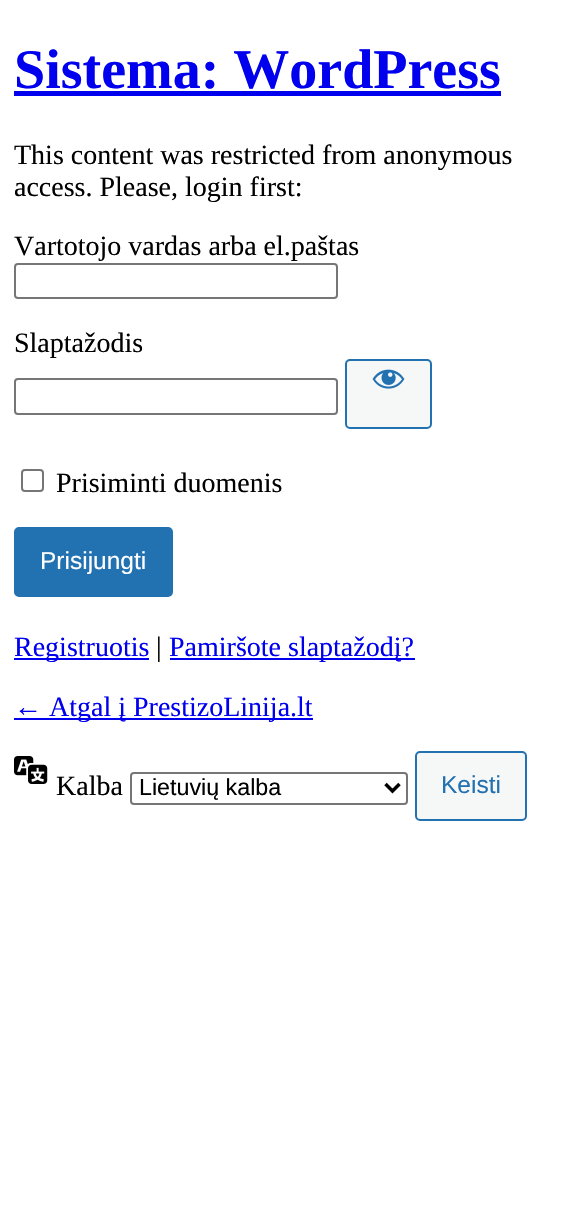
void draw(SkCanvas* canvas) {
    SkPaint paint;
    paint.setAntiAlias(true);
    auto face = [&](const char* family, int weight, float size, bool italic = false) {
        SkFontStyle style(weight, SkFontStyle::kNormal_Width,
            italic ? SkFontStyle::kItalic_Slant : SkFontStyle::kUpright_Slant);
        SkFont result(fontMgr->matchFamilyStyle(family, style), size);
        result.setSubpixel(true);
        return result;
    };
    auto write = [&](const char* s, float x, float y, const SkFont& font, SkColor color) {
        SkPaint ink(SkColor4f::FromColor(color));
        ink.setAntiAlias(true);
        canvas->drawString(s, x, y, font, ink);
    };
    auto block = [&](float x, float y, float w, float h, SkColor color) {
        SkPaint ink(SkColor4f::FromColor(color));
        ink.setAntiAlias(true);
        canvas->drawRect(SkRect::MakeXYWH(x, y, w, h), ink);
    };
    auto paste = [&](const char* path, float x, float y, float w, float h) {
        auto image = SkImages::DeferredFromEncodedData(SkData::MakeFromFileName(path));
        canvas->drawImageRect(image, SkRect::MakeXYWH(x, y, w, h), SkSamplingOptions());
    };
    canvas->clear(SK_ColorWHITE);
    auto kFont1 = face("Liberation Serif", 700, 56);
    write("Sistema: WordPress", 14, 88, kFont1, SkColorSetRGB(0, 0, 238));
    block(14, 91, 487, 5, SkColorSetRGB(0, 0, 238));
    auto kFont2 = face("Liberation Serif", 400, 28);
    write("This content was restricted from anonymous", 14, 164, kFont2, SK_ColorBLACK);
    write("access. Please, login first:", 14, 196, kFont2, SK_ColorBLACK);
    write("Vartotojo vardas arba el.paštas", 14, 255, kFont2, SK_ColorBLACK);
    paint.setStyle(SkPaint::kStroke_Style);
    paint.setStrokeWidth(2);
    paint.setColor(SkColorSetRGB(118, 118, 118));
    canvas->drawRoundRect(SkRect::MakeXYWH(15, 264, 322, 34), 3, 3, paint);
    write("Slaptažodis", 14, 352, kFont2, SK_ColorBLACK);
    canvas->drawRoundRect(SkRect::MakeXYWH(15, 379, 322, 35), 3, 3, paint);
    paint.setStyle(SkPaint::kFill_Style);
    paint.setColor(SkColorSetRGB(246, 247, 247));
    canvas->drawRoundRect(SkRect::MakeXYWH(346, 360, 85, 68), 4, 4, paint);
    paint.setStyle(SkPaint::kStroke_Style);
    paint.setColor(SkColorSetRGB(34, 113, 177));
    canvas->drawRoundRect(SkRect::MakeXYWH(346, 360, 85, 68), 4, 4, paint);
    paste("pic1.png", 372, 369, 33, 20);
    paint.setColor(SkColorSetRGB(118, 118, 118));
    canvas->drawRoundRect(SkRect::MakeXYWH(22, 470, 21, 21), 3, 3, paint);
    write("Prisiminti duomenis", 56, 492, kFont2, SK_ColorBLACK);
    paint.setStyle(SkPaint::kFill_Style);
    paint.setColor(SkColorSetRGB(34, 113, 177));
    canvas->drawRoundRect(SkRect::MakeXYWH(15, 528, 157, 68), 4, 4, paint);
    paint.setStyle(SkPaint::kStroke_Style);
    canvas->drawRoundRect(SkRect::MakeXYWH(15, 528, 157, 68), 4, 4, paint);
    auto kFont3 = face("Liberation Sans", 400, 24.5f);
    write("Prisijungti", 40, 569, kFont3, SK_ColorWHITE);
    block(14, 658, 135, 2, SkColorSetRGB(0, 0, 238));
    write("Registruotis", 14, 656, kFont2, SkColorSetRGB(0, 0, 238));
    write("|", 156, 656, kFont2, SK_ColorBLACK);
    block(170, 658, 245, 2, SkColorSetRGB(0, 0, 238));
    write("Pamiršote slaptažodį?", 169, 656, kFont2, SkColorSetRGB(0, 0, 238));
    block(14, 718, 299, 2, SkColorSetRGB(0, 0, 238));
    write("← Atgal į PrestizoLinija.lt", 14, 716, kFont2, SkColorSetRGB(0, 0, 238));
    paste("pic2.png", 14, 756, 34, 28);
    write("Kalba", 56, 795, kFont2, SK_ColorBLACK);
    paint.setColor(SkColorSetRGB(118, 118, 118));
    canvas->drawRoundRect(SkRect::MakeXYWH(131, 773, 276, 31), 3, 3, paint);
    paint.setStrokeWidth(3.5f);
    paint.setColor(SK_ColorBLACK);
    canvas->drawPath(SkPathBuilder().moveTo(385.5f, 784).lineTo(392.5f, 791).lineTo(399.5f, 784).detach(), paint);
    auto kFont4 = face("Liberation Sans", 400, 23.25f);
    write("Lietuvių kalba", 139, 795, kFont4, SK_ColorBLACK);
    paint.setStyle(SkPaint::kFill_Style);
    paint.setColor(SkColorSetRGB(246, 247, 247));
    canvas->drawRoundRect(SkRect::MakeXYWH(416, 752, 110, 68), 4, 4, paint);
    paint.setStyle(SkPaint::kStroke_Style);
    paint.setStrokeWidth(2);
    paint.setColor(SkColorSetRGB(34, 113, 177));
    canvas->drawRoundRect(SkRect::MakeXYWH(416, 752, 110, 68), 4, 4, paint);
    write("Keisti", 441, 793, kFont3, SkColorSetRGB(34, 113, 177));
}
